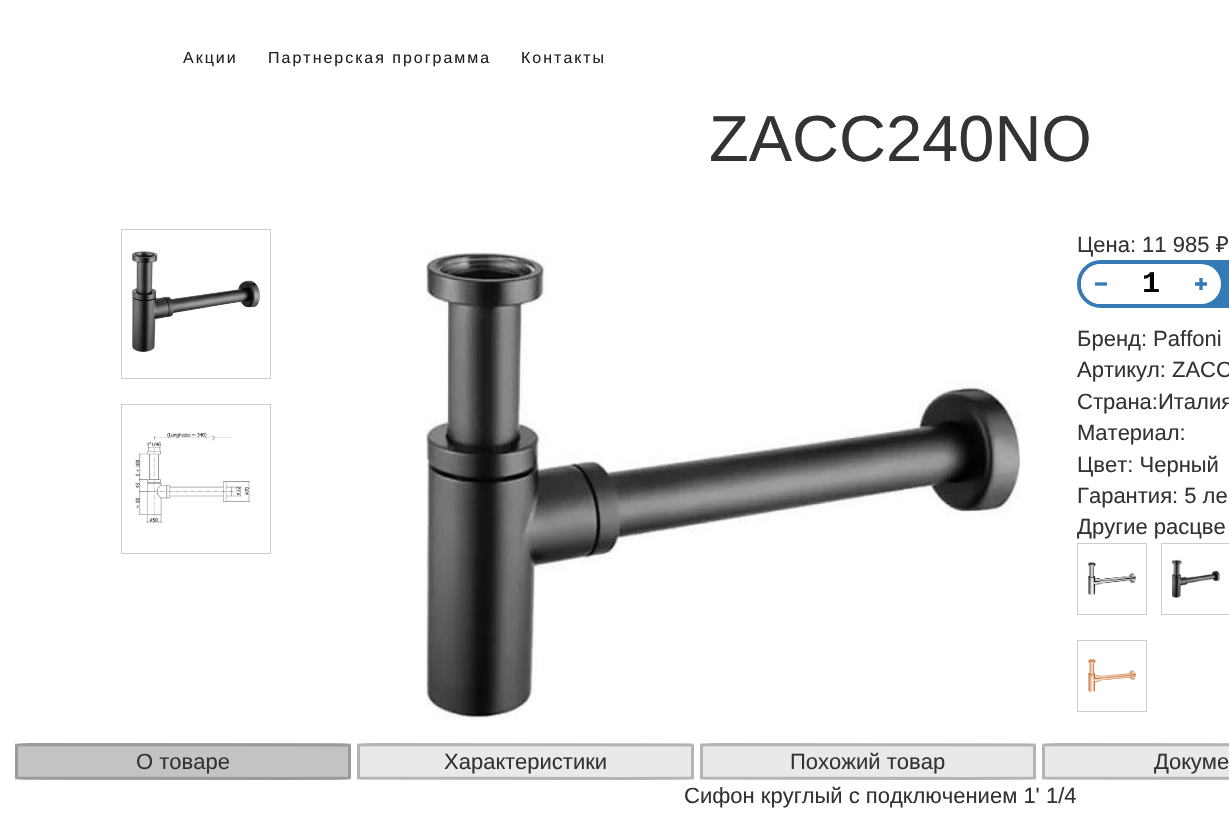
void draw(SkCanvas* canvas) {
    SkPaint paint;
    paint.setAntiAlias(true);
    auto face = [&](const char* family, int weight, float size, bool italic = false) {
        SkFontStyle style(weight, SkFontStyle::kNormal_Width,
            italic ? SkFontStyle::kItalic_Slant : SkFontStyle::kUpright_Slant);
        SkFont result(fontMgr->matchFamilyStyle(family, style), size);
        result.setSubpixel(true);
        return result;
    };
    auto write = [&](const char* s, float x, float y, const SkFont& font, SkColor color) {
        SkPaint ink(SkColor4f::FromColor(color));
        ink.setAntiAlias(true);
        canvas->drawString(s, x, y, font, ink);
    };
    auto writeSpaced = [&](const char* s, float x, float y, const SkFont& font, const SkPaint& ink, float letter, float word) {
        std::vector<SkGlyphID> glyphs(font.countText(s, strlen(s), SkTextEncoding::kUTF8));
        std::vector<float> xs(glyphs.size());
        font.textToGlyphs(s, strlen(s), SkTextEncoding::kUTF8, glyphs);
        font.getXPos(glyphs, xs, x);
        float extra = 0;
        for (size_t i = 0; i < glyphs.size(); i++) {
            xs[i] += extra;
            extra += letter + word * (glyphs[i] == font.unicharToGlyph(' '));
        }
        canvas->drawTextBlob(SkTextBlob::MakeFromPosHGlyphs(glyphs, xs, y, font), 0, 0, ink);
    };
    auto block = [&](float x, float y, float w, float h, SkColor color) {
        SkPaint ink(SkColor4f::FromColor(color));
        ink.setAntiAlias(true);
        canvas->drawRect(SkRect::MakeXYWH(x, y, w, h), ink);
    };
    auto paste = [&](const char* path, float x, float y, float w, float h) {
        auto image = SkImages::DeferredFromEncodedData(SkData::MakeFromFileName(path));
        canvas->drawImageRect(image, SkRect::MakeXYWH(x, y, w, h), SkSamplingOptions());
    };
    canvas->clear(SK_ColorWHITE);
    auto kFont1 = face("Liberation Sans", 400, 16);
    paint.setColor(SkColorSetRGB(34, 34, 34));
    writeSpaced("Акции", 183, 63, kFont1, paint, 2, 0);
    writeSpaced("Партнерская программа", 268, 63, kFont1, paint, 2, 0);
    writeSpaced("Контакты", 521, 63, kFont1, paint, 2, 0);
    auto kFont2 = face("Liberation Sans", 400, 65);
    write("ZACC240NO", 709, 161, kFont2, SkColorSetRGB(51, 51, 51));
    paint.setStyle(SkPaint::kStroke_Style);
    paint.setStrokeWidth(1);
    paint.setColor(SkColorSetRGB(204, 204, 204));
    canvas->drawRect(SkRect::MakeXYWH(121.5f, 229.5f, 149, 149), paint);
    paste("pic1.png", 132, 251, 128, 101);
    canvas->drawRect(SkRect::MakeXYWH(121.5f, 404.5f, 149, 149), paint);
    paste("pic2.png", 132, 430, 118, 93);
    paste("pic3.png", 426, 249, 594, 472);
    auto kFont3 = face("Liberation Sans", 400, 22);
    write("Цена: 11 985", 1077, 252, kFont3, SkColorSetRGB(51, 51, 51));
    auto kFont4 = face("Noto Sans", 400, 22);
    write("₽", 1216, 252, kFont4, SkColorSetRGB(51, 51, 51));
    paint.setStrokeWidth(4);
    paint.setColor(SkColorSetRGB(51, 122, 183));
    canvas->drawRoundRect(SkRect::MakeXYWH(1079, 262, 144, 44), 22, 22, paint);
    paint.setStyle(SkPaint::kFill_Style);
    paint.setColor(SK_ColorWHITE);
    canvas->drawCircle(1101, 284, 20, paint);
    paint.setStyle(SkPaint::kStroke_Style);
    paint.setStrokeWidth(3.3f);
    paint.setColor(SkColorSetRGB(51, 122, 183));
    canvas->drawPath(SkPathBuilder().moveTo(1095, 284).lineTo(1107, 284).detach(), paint);
    block(1201, 260, 28, 48, SkColorSetRGB(51, 122, 183));
    auto kFont5 = face("Liberation Mono", 700, 30);
    write("1", 1142, 292, kFont5, SK_ColorBLACK);
    paint.setStyle(SkPaint::kFill_Style);
    paint.setColor(SK_ColorWHITE);
    canvas->drawCircle(1201, 284, 20, paint);
    paint.setStyle(SkPaint::kStroke_Style);
    paint.setColor(SkColorSetRGB(51, 122, 183));
    canvas->drawPath(SkPathBuilder().moveTo(1201, 278).lineTo(1201, 290).moveTo(1195, 284).lineTo(1207, 284).detach(), paint);
    write("Бренд: Paffoni", 1077, 346, kFont3, SkColorSetRGB(51, 51, 51));
    write("Артикул: ZACC", 1077, 377, kFont3, SkColorSetRGB(51, 51, 51));
    write("Страна:Италия", 1077, 409, kFont3, SkColorSetRGB(51, 51, 51));
    write("Материал:", 1077, 440, kFont3, SkColorSetRGB(51, 51, 51));
    write("Цвет: Черный", 1077, 472, kFont3, SkColorSetRGB(51, 51, 51));
    write("Гарантия: 5 ле", 1077, 503, kFont3, SkColorSetRGB(51, 51, 51));
    write("Другие расцве", 1077, 534, kFont3, SkColorSetRGB(51, 51, 51));
    paint.setStrokeWidth(1);
    paint.setColor(SkColorSetRGB(204, 204, 204));
    canvas->drawRect(SkRect::MakeXYWH(1077.5f, 543.5f, 69, 71), paint);
    paste("pic4.png", 1088, 562, 48, 33);
    canvas->drawRect(SkRect::MakeXYWH(1161.5f, 543.5f, 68, 71), paint);
    paste("pic5.png", 1172, 559, 48, 39);
    canvas->drawRect(SkRect::MakeXYWH(1077.5f, 640.5f, 69, 71), paint);
    paste("pic6.png", 1088, 659, 48, 33);
    paint.setStyle(SkPaint::kFill_Style);
    paint.setColor(SkColorSetRGB(196, 195, 195));
    canvas->drawPath(SkPathBuilder().moveTo(32, 743).lineTo(334, 743).cubicTo(343, 743, 351, 744, 351, 745).lineTo(351, 778).cubicTo(351, 779, 343, 780, 334, 780).lineTo(32, 780).cubicTo(23, 780, 15, 779, 15, 778).lineTo(15, 745).cubicTo(15, 744, 23, 743, 32, 743).close().detach(), paint);
    paint.setStyle(SkPaint::kStroke_Style);
    paint.setStrokeWidth(3);
    paint.setColor(SkColorSetARGB(77, 58, 55, 55));
    canvas->drawPath(SkPathBuilder().moveTo(32, 744.5f).lineTo(349.5f, 745).lineTo(349.5f, 778).lineTo(284, 778.5f).lineTo(16.5f, 778).lineTo(16.5f, 745).close().detach(), paint);
    write("О товаре", 136, 769, kFont3, SkColorSetRGB(51, 51, 51));
    paint.setStyle(SkPaint::kFill_Style);
    paint.setColor(SkColorSetRGB(234, 233, 233));
    canvas->drawPath(SkPathBuilder().moveTo(374, 743).lineTo(677, 743).cubicTo(686, 743, 694, 744, 694, 745).lineTo(694, 778).cubicTo(694, 779, 686, 780, 677, 780).lineTo(374, 780).cubicTo(365, 780, 357, 779, 357, 778).lineTo(357, 745).cubicTo(357, 744, 365, 743, 374, 743).close().detach(), paint);
    paint.setStyle(SkPaint::kStroke_Style);
    paint.setColor(SkColorSetARGB(77, 58, 55, 55));
    canvas->drawPath(SkPathBuilder().moveTo(374, 744.5f).lineTo(692.5f, 745).lineTo(692.5f, 778).lineTo(626.5f, 778.5f).lineTo(358.5f, 778).lineTo(358.5f, 745).close().detach(), paint);
    write("Характеристики", 444, 769, kFont3, SkColorSetRGB(51, 51, 51));
    paint.setStyle(SkPaint::kFill_Style);
    paint.setColor(SkColorSetRGB(234, 233, 233));
    canvas->drawPath(SkPathBuilder().moveTo(717, 743).lineTo(1019, 743).cubicTo(1028, 743, 1036, 744, 1036, 745).lineTo(1036, 778).cubicTo(1036, 779, 1028, 780, 1019, 780).lineTo(717, 780).cubicTo(708, 780, 700, 779, 700, 778).lineTo(700, 745).cubicTo(700, 744, 708, 743, 717, 743).close().detach(), paint);
    paint.setStyle(SkPaint::kStroke_Style);
    paint.setColor(SkColorSetARGB(77, 58, 55, 55));
    canvas->drawPath(SkPathBuilder().moveTo(717, 744.5f).lineTo(1034.5f, 745).lineTo(1034.5f, 778).lineTo(969, 778.5f).lineTo(701.5f, 778).lineTo(701.5f, 745).close().detach(), paint);
    write("Похожий товар", 790, 769, kFont3, SkColorSetRGB(51, 51, 51));
    paint.setStyle(SkPaint::kFill_Style);
    paint.setColor(SkColorSetRGB(234, 233, 233));
    canvas->drawPath(SkPathBuilder().moveTo(1059, 743).lineTo(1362, 743).cubicTo(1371, 743, 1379, 744, 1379, 745).lineTo(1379, 778).cubicTo(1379, 779, 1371, 780, 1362, 780).lineTo(1059, 780).cubicTo(1050, 780, 1042, 779, 1042, 778).lineTo(1042, 745).cubicTo(1042, 744, 1050, 743, 1059, 743).close().detach(), paint);
    paint.setStyle(SkPaint::kStroke_Style);
    paint.setColor(SkColorSetARGB(77, 58, 55, 55));
    canvas->drawPath(SkPathBuilder().moveTo(1059, 744.5f).lineTo(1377.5f, 745).lineTo(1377.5f, 778).lineTo(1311.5f, 778.5f).lineTo(1043.5f, 778).lineTo(1043.5f, 745).close().detach(), paint);
    write("Докуме", 1154, 769, kFont3, SkColorSetRGB(51, 51, 51));
    write("Сифон круглый с подключением 1' 1/4", 684, 803, kFont3, SkColorSetRGB(51, 51, 51));
}
